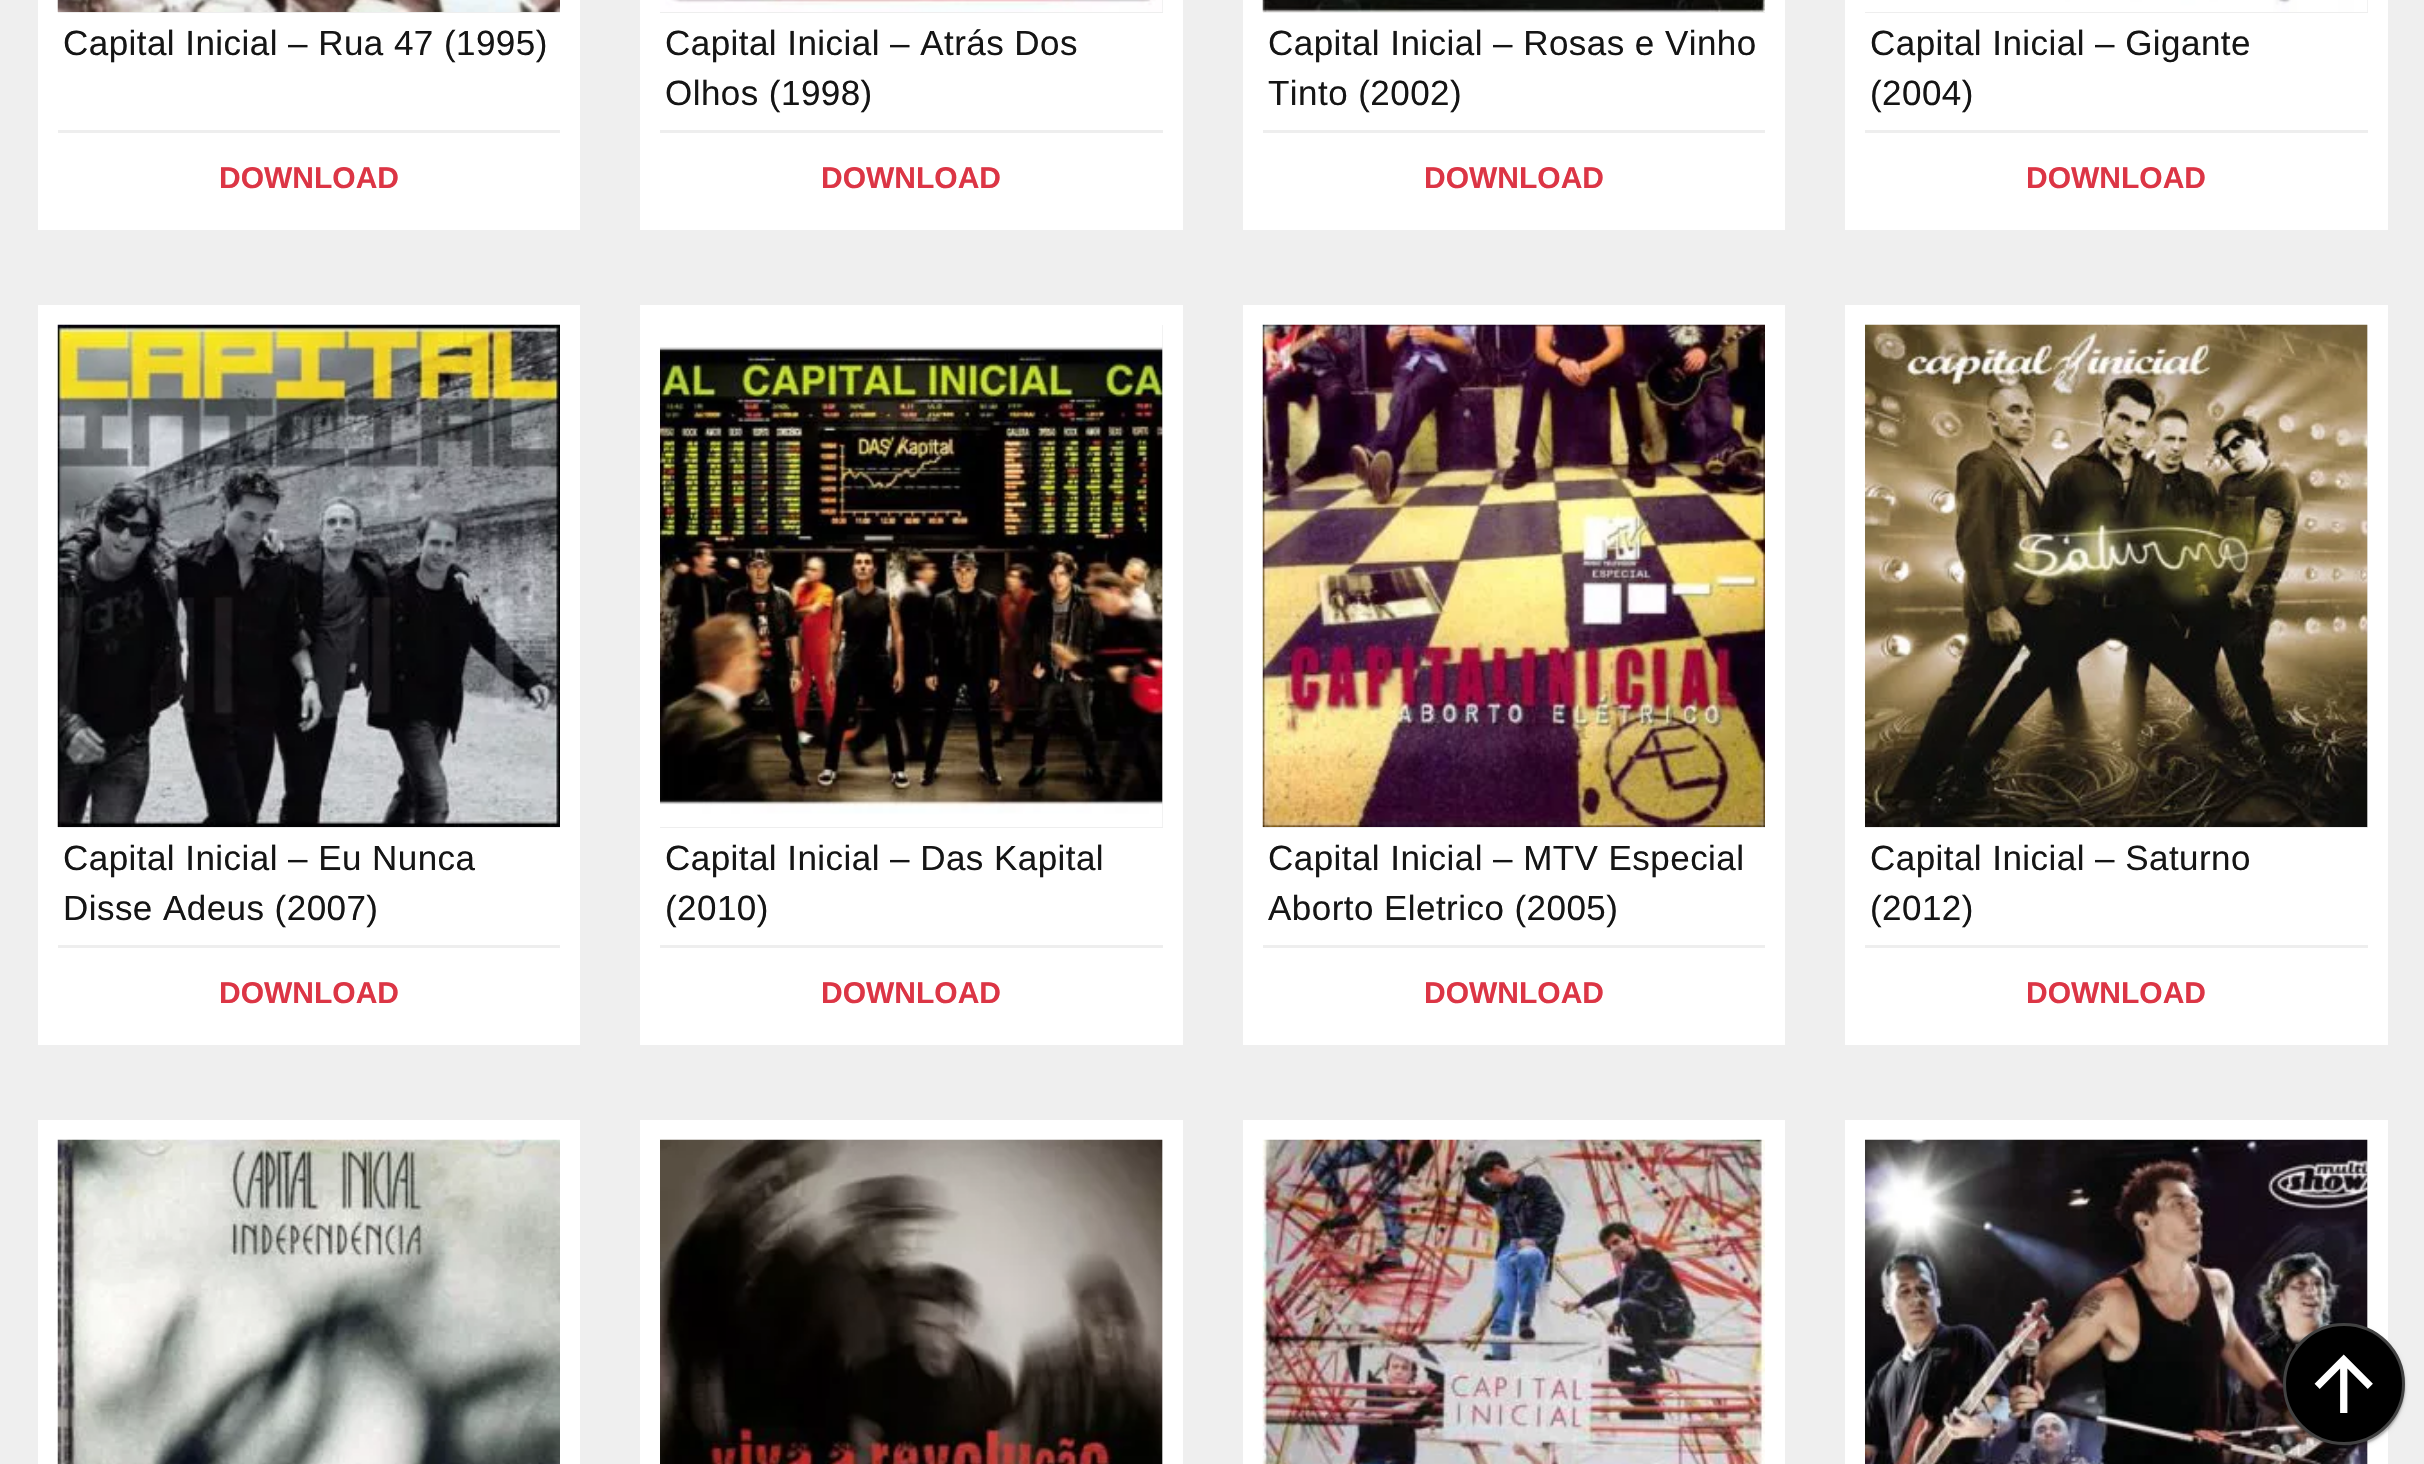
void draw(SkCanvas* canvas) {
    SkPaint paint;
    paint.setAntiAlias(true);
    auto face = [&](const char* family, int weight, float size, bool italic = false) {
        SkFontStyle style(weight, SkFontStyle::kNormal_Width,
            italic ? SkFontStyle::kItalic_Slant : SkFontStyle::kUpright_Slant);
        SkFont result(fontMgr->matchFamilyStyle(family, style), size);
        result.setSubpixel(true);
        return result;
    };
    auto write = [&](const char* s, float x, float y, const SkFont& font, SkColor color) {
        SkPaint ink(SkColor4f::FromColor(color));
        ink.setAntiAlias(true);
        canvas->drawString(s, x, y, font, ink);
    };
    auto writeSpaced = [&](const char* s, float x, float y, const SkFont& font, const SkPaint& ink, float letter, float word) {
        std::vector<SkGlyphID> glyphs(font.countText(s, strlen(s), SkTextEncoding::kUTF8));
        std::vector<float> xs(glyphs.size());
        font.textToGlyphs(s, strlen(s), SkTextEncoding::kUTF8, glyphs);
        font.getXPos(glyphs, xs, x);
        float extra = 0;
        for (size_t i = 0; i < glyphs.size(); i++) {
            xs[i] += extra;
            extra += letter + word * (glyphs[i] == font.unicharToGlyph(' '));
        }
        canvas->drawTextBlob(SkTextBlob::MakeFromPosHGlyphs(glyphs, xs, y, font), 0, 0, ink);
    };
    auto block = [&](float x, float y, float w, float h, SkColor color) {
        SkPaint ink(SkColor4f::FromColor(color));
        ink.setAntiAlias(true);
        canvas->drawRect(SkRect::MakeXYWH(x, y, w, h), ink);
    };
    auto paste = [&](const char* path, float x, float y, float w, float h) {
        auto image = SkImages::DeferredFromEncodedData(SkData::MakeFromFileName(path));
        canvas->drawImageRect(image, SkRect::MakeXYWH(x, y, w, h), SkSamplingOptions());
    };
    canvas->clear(SkColorSetRGB(239, 239, 239));
    block(38, 0, 542, 230, SK_ColorWHITE);
    block(58, 12, 502, 1, SkColorSetRGB(238, 238, 238));
    paste("pic1.png", 57, 0, 503, 12);
    auto kFont1 = face("Liberation Sans", 400, 35);
    paint.setColor(SkColorSetRGB(21, 21, 21));
    writeSpaced("Capital Inicial – Rua 47 (1995)", 63, 55, kFont1, paint, 0.45f, 0);
    block(58, 130, 502, 3, SkColorSetRGB(238, 238, 238));
    auto kFont2 = face("Liberation Sans", 700, 30);
    write("DOWNLOAD", 219, 188, kFont2, SkColorSetRGB(220, 53, 69));
    block(640, 0, 543, 230, SK_ColorWHITE);
    block(660, 0, 503, 13, SkColorSetRGB(238, 238, 238));
    paste("pic2.png", 660, 0, 503, 12);
    writeSpaced("Capital Inicial – Atrás Dos", 665, 55, kFont1, paint, 0.45f, 0);
    writeSpaced("Olhos (1998)", 665, 105, kFont1, paint, 0.45f, 0);
    block(660, 130, 503, 3, SkColorSetRGB(238, 238, 238));
    write("DOWNLOAD", 821, 188, kFont2, SkColorSetRGB(220, 53, 69));
    block(1243, 0, 542, 230, SK_ColorWHITE);
    block(1263, 12, 502, 1, SkColorSetRGB(238, 238, 238));
    paste("pic3.png", 1262, 0, 503, 12);
    writeSpaced("Capital Inicial – Rosas e Vinho", 1268, 55, kFont1, paint, 0.45f, 0);
    writeSpaced("Tinto (2002)", 1268, 105, kFont1, paint, 0.45f, 0);
    block(1263, 130, 502, 3, SkColorSetRGB(238, 238, 238));
    write("DOWNLOAD", 1424, 188, kFont2, SkColorSetRGB(220, 53, 69));
    block(1845, 0, 543, 230, SK_ColorWHITE);
    block(1865, 0, 503, 13, SkColorSetRGB(238, 238, 238));
    paste("pic4.png", 1865, 0, 503, 12);
    writeSpaced("Capital Inicial – Gigante", 1870, 55, kFont1, paint, 0.45f, 0);
    writeSpaced("(2004)", 1870, 105, kFont1, paint, 0.45f, 0);
    block(1865, 130, 503, 3, SkColorSetRGB(238, 238, 238));
    write("DOWNLOAD", 2026, 188, kFont2, SkColorSetRGB(220, 53, 69));
    block(38, 305, 542, 740, SK_ColorWHITE);
    block(58, 827, 502, 1, SkColorSetRGB(238, 238, 238));
    paste("pic5.png", 57, 324, 503, 503);
    writeSpaced("Capital Inicial – Eu Nunca", 63, 870, kFont1, paint, 0.45f, 0);
    writeSpaced("Disse Adeus (2007)", 63, 920, kFont1, paint, 0.45f, 0);
    block(58, 945, 502, 3, SkColorSetRGB(238, 238, 238));
    write("DOWNLOAD", 219, 1003, kFont2, SkColorSetRGB(220, 53, 69));
    block(640, 305, 543, 740, SK_ColorWHITE);
    block(660, 325, 503, 503, SkColorSetRGB(238, 238, 238));
    paste("pic6.png", 660, 325, 503, 502);
    writeSpaced("Capital Inicial – Das Kapital", 665, 870, kFont1, paint, 0.45f, 0);
    writeSpaced("(2010)", 665, 920, kFont1, paint, 0.45f, 0);
    block(660, 945, 503, 3, SkColorSetRGB(238, 238, 238));
    write("DOWNLOAD", 821, 1003, kFont2, SkColorSetRGB(220, 53, 69));
    block(1243, 305, 542, 740, SK_ColorWHITE);
    block(1263, 827, 502, 1, SkColorSetRGB(238, 238, 238));
    paste("pic7.png", 1262, 324, 503, 503);
    writeSpaced("Capital Inicial – MTV Especial", 1268, 870, kFont1, paint, 0.45f, 0);
    writeSpaced("Aborto Eletrico (2005)", 1268, 920, kFont1, paint, 0.45f, 0);
    block(1263, 945, 502, 3, SkColorSetRGB(238, 238, 238));
    write("DOWNLOAD", 1424, 1003, kFont2, SkColorSetRGB(220, 53, 69));
    block(1845, 305, 543, 740, SK_ColorWHITE);
    block(1865, 325, 503, 503, SkColorSetRGB(238, 238, 238));
    paste("pic8.png", 1865, 324, 503, 503);
    writeSpaced("Capital Inicial – Saturno", 1870, 870, kFont1, paint, 0.45f, 0);
    writeSpaced("(2012)", 1870, 920, kFont1, paint, 0.45f, 0);
    block(1865, 945, 503, 3, SkColorSetRGB(238, 238, 238));
    write("DOWNLOAD", 2026, 1003, kFont2, SkColorSetRGB(220, 53, 69));
    block(38, 1120, 542, 344, SK_ColorWHITE);
    paste("pic9.png", 57, 1139, 503, 325);
    block(640, 1120, 543, 344, SK_ColorWHITE);
    block(1162, 1140, 1, 324, SkColorSetRGB(238, 238, 238));
    paste("pic10.png", 660, 1139, 503, 325);
    block(1243, 1120, 542, 344, SK_ColorWHITE);
    paste("pic11.png", 1262, 1139, 503, 325);
    block(1845, 1120, 543, 344, SK_ColorWHITE);
    block(2367, 1140, 1, 324, SkColorSetRGB(238, 238, 238));
    paste("pic12.png", 1865, 1139, 503, 325);
    paint.setColor(SkColorSetARGB(61, 0, 0, 0));
    paint.setMaskFilter(SkMaskFilter::MakeBlur(kNormal_SkBlurStyle, 1));
    canvas->drawRoundRect(SkRect::MakeXYWH(2283, 1325, 122, 123), 61, 61, paint);
    paint.setMaskFilter(nullptr);
    paint.setColor(SkColorSetARGB(31, 0, 0, 0));
    paint.setMaskFilter(SkMaskFilter::MakeBlur(kNormal_SkBlurStyle, 2));
    canvas->drawRoundRect(SkRect::MakeXYWH(2283, 1325, 122, 123), 61, 61, paint);
    paint.setMaskFilter(nullptr);
    paint.setColor(SK_ColorBLACK);
    canvas->drawCircle(2344, 1384, 59.5f, paint);
    paint.setStyle(SkPaint::kStroke_Style);
    paint.setStrokeWidth(3);
    paint.setColor(SkColorSetRGB(66, 66, 66));
    canvas->drawCircle(2344, 1384, 59.5f, paint);
    paste("pic13.png", 2314, 1354, 59, 59);
}
